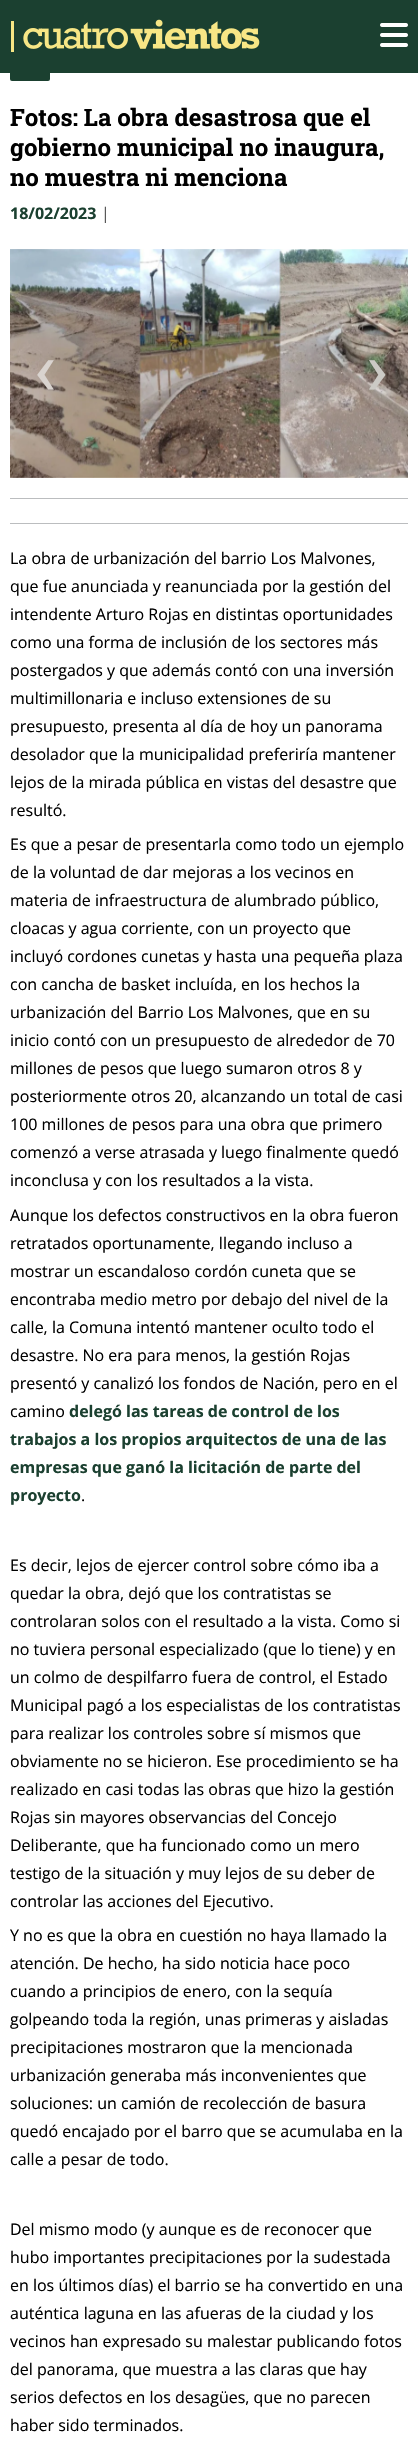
void draw(SkCanvas* canvas) {
    SkPaint paint;
    paint.setAntiAlias(true);
    auto face = [&](const char* family, int weight, float size, bool italic = false) {
        SkFontStyle style(weight, SkFontStyle::kNormal_Width,
            italic ? SkFontStyle::kItalic_Slant : SkFontStyle::kUpright_Slant);
        SkFont result(fontMgr->matchFamilyStyle(family, style), size);
        result.setSubpixel(true);
        return result;
    };
    auto write = [&](const char* s, float x, float y, const SkFont& font, SkColor color) {
        SkPaint ink(SkColor4f::FromColor(color));
        ink.setAntiAlias(true);
        canvas->drawString(s, x, y, font, ink);
    };
    auto block = [&](float x, float y, float w, float h, SkColor color) {
        SkPaint ink(SkColor4f::FromColor(color));
        ink.setAntiAlias(true);
        canvas->drawRect(SkRect::MakeXYWH(x, y, w, h), ink);
    };
    auto card = [&](float x, float y, float w, float h, float radius, SkColor color) {
        SkPaint ink(SkColor4f::FromColor(color));
        ink.setAntiAlias(true);
        canvas->drawRoundRect(SkRect::MakeXYWH(x, y, w, h), radius, radius, ink);
    };
    auto paste = [&](const char* path, float x, float y, float w, float h) {
        auto image = SkImages::DeferredFromEncodedData(SkData::MakeFromFileName(path));
        canvas->drawImageRect(image, SkRect::MakeXYWH(x, y, w, h), SkSamplingOptions());
    };
    canvas->clear(SK_ColorWHITE);
    card(10, 71, 40, 10, 2, SkColorSetRGB(27, 64, 48));
    block(0, 0, 418, 73, SkColorSetRGB(27, 64, 48));
    paste("pic1.png", 11, 19, 249, 33);
    paste("pic2.png", 380, 23, 28, 24);
    auto kFont1 = face("Roboto Slab", 700, 24);
    write("Fotos: La obra desastrosa que el", 10, 126, kFont1, SK_ColorBLACK);
    write("gobierno municipal no inaugura,", 10, 156, kFont1, SK_ColorBLACK);
    write("no muestra ni menciona", 10, 186, kFont1, SK_ColorBLACK);
    auto kFont2 = face("Open Sans", 700, 16);
    write("18/02/2023", 10, 219, kFont2, SkColorSetRGB(27, 64, 48));
    auto kFont3 = face("Open Sans", 400, 16);
    write("|", 101, 219, kFont3, SkColorSetRGB(81, 81, 81));
    paste("pic3.png", 10, 249, 398, 229);
    auto kFont4 = face("Roboto Slab", 400, 75);
    write("‹", 35, 395, kFont4, SkColorSetRGB(217, 211, 207));
    write("›", 366, 395, kFont4, SkColorSetRGB(204, 202, 197));
    block(10, 498, 398, 1, SkColorSetRGB(187, 189, 191));
    block(10, 523, 398, 1, SkColorSetRGB(187, 189, 191));
    write("La obra de urbanización del barrio Los Malvones,", 10, 564, kFont3, SK_ColorBLACK);
    write("que fue anunciada y reanunciada por la gestión del", 10, 592, kFont3, SK_ColorBLACK);
    write("intendente Arturo Rojas en distintas oportunidades", 10, 620, kFont3, SK_ColorBLACK);
    write("como una forma de inclusión de los sectores más", 10, 648, kFont3, SK_ColorBLACK);
    write("postergados y que además contó con una inversión", 10, 676, kFont3, SK_ColorBLACK);
    write("multimillonaria e incluso extensiones de su", 10, 704, kFont3, SK_ColorBLACK);
    write("presupuesto, presenta al día de hoy un panorama", 10, 732, kFont3, SK_ColorBLACK);
    write("desolador que la municipalidad preferiría mantener", 10, 760, kFont3, SK_ColorBLACK);
    write("lejos de la mirada pública en vistas del desastre que", 10, 788, kFont3, SK_ColorBLACK);
    write("resultó.", 10, 816, kFont3, SK_ColorBLACK);
    write("Es que a pesar de presentarla como todo un ejemplo", 10, 850, kFont3, SK_ColorBLACK);
    write("de la voluntad de dar mejoras a los vecinos en", 10, 878, kFont3, SK_ColorBLACK);
    write("materia de infraestructura de alumbrado público,", 10, 906, kFont3, SK_ColorBLACK);
    write("cloacas y agua corriente, con un proyecto que", 10, 934, kFont3, SK_ColorBLACK);
    write("incluyó cordones cunetas y hasta una pequeña plaza", 10, 962, kFont3, SK_ColorBLACK);
    write("con cancha de basket incluída, en los hechos la", 10, 990, kFont3, SK_ColorBLACK);
    write("urbanización del Barrio Los Malvones, que en su", 10, 1018, kFont3, SK_ColorBLACK);
    write("inicio contó con un presupuesto de alrededor de 70", 10, 1046, kFont3, SK_ColorBLACK);
    write("millones de pesos que luego sumaron otros 8 y", 10, 1074, kFont3, SK_ColorBLACK);
    write("posteriormente otros 20, alcanzando un total de casi", 10, 1102, kFont3, SK_ColorBLACK);
    write("100 millones de pesos para una obra que primero", 10, 1130, kFont3, SK_ColorBLACK);
    write("comenzó a verse atrasada y luego finalmente quedó", 10, 1158, kFont3, SK_ColorBLACK);
    write("inconclusa y con los resultados a la vista.", 10, 1186, kFont3, SK_ColorBLACK);
    write("Aunque los defectos constructivos en la obra fueron", 10, 1221, kFont3, SK_ColorBLACK);
    write("retratados oportunamente, llegando incluso a", 10, 1249, kFont3, SK_ColorBLACK);
    write("mostrar un escandaloso cordón cuneta que se", 10, 1277, kFont3, SK_ColorBLACK);
    write("encontraba medio metro por debajo del nivel de la", 10, 1305, kFont3, SK_ColorBLACK);
    write("calle, la Comuna intentó mantener oculto todo el", 10, 1333, kFont3, SK_ColorBLACK);
    write("desastre. No era para menos, la gestión Rojas", 10, 1361, kFont3, SK_ColorBLACK);
    write("presentó y canalizó los fondos de Nación, pero en el", 10, 1389, kFont3, SK_ColorBLACK);
    write("camino", 10, 1417, kFont3, SK_ColorBLACK);
    write("delegó las tareas de control de los", 69, 1417, kFont2, SkColorSetRGB(27, 64, 48));
    write("trabajos a los propios arquitectos de una de las", 10, 1445, kFont2, SkColorSetRGB(27, 64, 48));
    write("empresas que ganó la licitación de parte del", 10, 1473, kFont2, SkColorSetRGB(27, 64, 48));
    write("proyecto", 10, 1501, kFont2, SkColorSetRGB(27, 64, 48));
    write(".", 81, 1501, kFont3, SK_ColorBLACK);
    write("Es decir, lejos de ejercer control sobre cómo iba a", 10, 1571, kFont3, SK_ColorBLACK);
    write("quedar la obra, dejó que los contratistas se", 10, 1599, kFont3, SK_ColorBLACK);
    write("controlaran solos con el resultado a la vista. Como si", 10, 1627, kFont3, SK_ColorBLACK);
    write("no tuviera personal especializado (que lo tiene) y en", 10, 1655, kFont3, SK_ColorBLACK);
    write("un colmo de despilfarro fuera de control, el Estado", 10, 1683, kFont3, SK_ColorBLACK);
    write("Municipal pagó a los especialistas de los contratistas", 10, 1711, kFont3, SK_ColorBLACK);
    write("para realizar los controles sobre sí mismos que", 10, 1739, kFont3, SK_ColorBLACK);
    write("obviamente no se hicieron. Ese procedimiento se ha", 10, 1767, kFont3, SK_ColorBLACK);
    write("realizado en casi todas las obras que hizo la gestión", 10, 1795, kFont3, SK_ColorBLACK);
    write("Rojas sin mayores observancias del Concejo", 10, 1823, kFont3, SK_ColorBLACK);
    write("Deliberante, que ha funcionado como un mero", 10, 1851, kFont3, SK_ColorBLACK);
    write("testigo de la situación y muy lejos de su deber de", 10, 1879, kFont3, SK_ColorBLACK);
    write("controlar las acciones del Ejecutivo.", 10, 1907, kFont3, SK_ColorBLACK);
    write("Y no es que la obra en cuestión no haya llamado la", 10, 1941, kFont3, SK_ColorBLACK);
    write("atención. De hecho, ha sido noticia hace poco", 10, 1969, kFont3, SK_ColorBLACK);
    write("cuando a principios de enero, con la sequía", 10, 1997, kFont3, SK_ColorBLACK);
    write("golpeando toda la región, unas primeras y aisladas", 10, 2025, kFont3, SK_ColorBLACK);
    write("precipitaciones mostraron que la mencionada", 10, 2053, kFont3, SK_ColorBLACK);
    write("urbanización generaba más inconvenientes que", 10, 2081, kFont3, SK_ColorBLACK);
    write("soluciones: un camión de recolección de basura", 10, 2109, kFont3, SK_ColorBLACK);
    write("quedó encajado por el barro que se acumulaba en la", 10, 2137, kFont3, SK_ColorBLACK);
    write("calle a pesar de todo.", 10, 2165, kFont3, SK_ColorBLACK);
    write("Del mismo modo (y aunque es de reconocer que", 10, 2235, kFont3, SK_ColorBLACK);
    write("hubo importantes precipitaciones por la sudestada", 10, 2263, kFont3, SK_ColorBLACK);
    write("en los últimos días) el barrio se ha convertido en una", 10, 2291, kFont3, SK_ColorBLACK);
    write("auténtica laguna en las afueras de la ciudad y los", 10, 2319, kFont3, SK_ColorBLACK);
    write("vecinos han expresado su malestar publicando fotos", 10, 2347, kFont3, SK_ColorBLACK);
    write("del panorama, que muestra a las claras que hay", 10, 2375, kFont3, SK_ColorBLACK);
    write("serios defectos en los desagües, que no parecen", 10, 2403, kFont3, SK_ColorBLACK);
    write("haber sido terminados.", 10, 2431, kFont3, SK_ColorBLACK);
}
